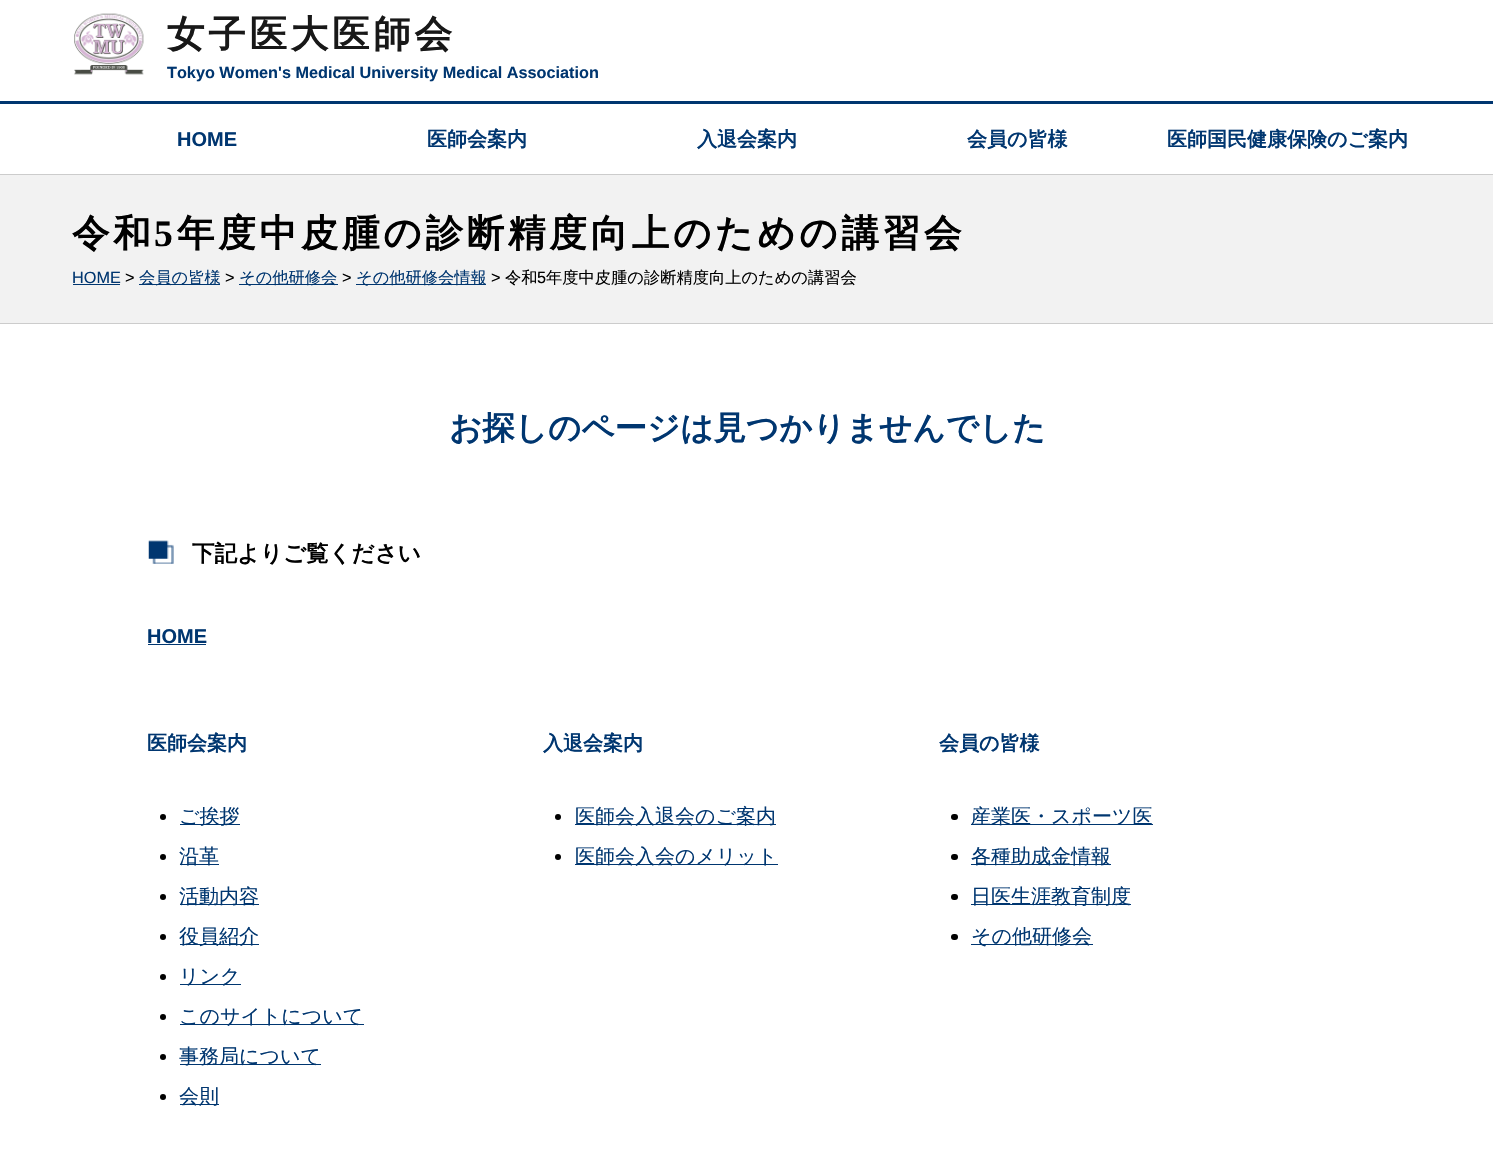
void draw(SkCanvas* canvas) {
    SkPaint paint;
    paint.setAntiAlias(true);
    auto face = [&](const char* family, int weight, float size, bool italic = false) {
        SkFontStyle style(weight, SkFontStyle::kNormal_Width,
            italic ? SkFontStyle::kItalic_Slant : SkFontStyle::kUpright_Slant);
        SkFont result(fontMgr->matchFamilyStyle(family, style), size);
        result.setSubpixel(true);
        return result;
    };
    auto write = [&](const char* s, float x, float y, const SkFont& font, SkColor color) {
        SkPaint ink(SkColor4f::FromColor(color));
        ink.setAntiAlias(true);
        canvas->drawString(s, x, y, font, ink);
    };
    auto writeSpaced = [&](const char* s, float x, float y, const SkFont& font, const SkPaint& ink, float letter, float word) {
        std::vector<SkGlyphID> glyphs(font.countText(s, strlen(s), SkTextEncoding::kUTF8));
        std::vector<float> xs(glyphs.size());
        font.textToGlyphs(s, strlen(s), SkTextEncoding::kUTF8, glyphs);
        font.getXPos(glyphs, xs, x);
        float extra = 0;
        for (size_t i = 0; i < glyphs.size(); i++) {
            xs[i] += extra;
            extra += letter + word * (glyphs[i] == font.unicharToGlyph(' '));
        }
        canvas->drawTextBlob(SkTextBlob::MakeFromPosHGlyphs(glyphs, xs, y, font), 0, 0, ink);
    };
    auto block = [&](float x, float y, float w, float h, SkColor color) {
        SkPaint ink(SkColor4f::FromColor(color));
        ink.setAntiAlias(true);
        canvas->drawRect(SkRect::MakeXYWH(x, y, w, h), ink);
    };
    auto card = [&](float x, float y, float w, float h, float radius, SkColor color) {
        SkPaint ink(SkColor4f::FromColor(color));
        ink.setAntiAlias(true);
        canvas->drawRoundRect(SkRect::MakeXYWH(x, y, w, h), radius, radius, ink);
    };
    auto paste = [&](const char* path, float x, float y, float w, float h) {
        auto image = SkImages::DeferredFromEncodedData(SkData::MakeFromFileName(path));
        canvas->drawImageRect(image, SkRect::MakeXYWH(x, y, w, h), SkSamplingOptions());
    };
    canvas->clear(SK_ColorWHITE);
    paste("pic1.png", 74, 13, 70, 62);
    auto kFont1 = face("WenQuanYi Zen Hei", 700, 37.5f);
    paint.setColor(SkColorSetRGB(24, 24, 24));
    writeSpaced("女子医大医師会", 167, 47, kFont1, paint, 3.75f, 0);
    auto kFont2 = face("Liberation Sans", 700, 16.25f);
    write("Tokyo Women's Medical University Medical Association", 167, 78, kFont2, SkColorSetRGB(0, 54, 112));
    block(0, 101, 1493, 3, SkColorSetRGB(0, 54, 112));
    block(0, 174, 1493, 1, SkColorSetRGB(204, 204, 204));
    auto kFont3 = face("Liberation Sans", 700, 20);
    write("HOME", 177, 146, kFont3, SkColorSetRGB(0, 54, 112));
    auto kFont4 = face("WenQuanYi Zen Hei", 700, 20);
    write("医師会案内", 427, 146, kFont4, SkColorSetRGB(0, 54, 112));
    write("入退会案内", 697, 146, kFont4, SkColorSetRGB(0, 54, 112));
    write("会員の皆様", 967, 146, kFont4, SkColorSetRGB(0, 54, 112));
    write("医師国民健康保険のご案内", 1167, 146, kFont4, SkColorSetRGB(0, 54, 112));
    block(0, 175, 1493, 148, SkColorSetRGB(242, 242, 242));
    block(0, 323, 1493, 1, SkColorSetRGB(204, 204, 204));
    paint.setColor(SK_ColorBLACK);
    writeSpaced("令和", 72, 246, kFont1, paint, 3.75f, 0);
    auto kFont5 = face("Liberation Serif", 700, 37.5f);
    writeSpaced("5", 154, 246, kFont5, paint, 3.75f, 0);
    writeSpaced("年度中皮腫の診断精度向上のための講習会", 177, 246, kFont1, paint, 3.75f, 0);
    auto kFont6 = face("Liberation Sans", 400, 16.25f);
    write("HOME", 72, 283, kFont6, SkColorSetRGB(0, 54, 112));
    block(73, 284, 47, 1, SkColorSetRGB(0, 54, 112));
    write(">", 125, 283, kFont6, SK_ColorBLACK);
    block(139, 284, 81, 1, SkColorSetRGB(0, 54, 112));
    auto kFont7 = face("WenQuanYi Zen Hei", 500, 16.25f);
    write("会員の皆様", 139, 283, kFont7, SkColorSetRGB(0, 54, 112));
    write(">", 225, 283, kFont6, SK_ColorBLACK);
    block(239, 284, 99, 1, SkColorSetRGB(0, 54, 112));
    write("その他研修会", 239, 283, kFont7, SkColorSetRGB(0, 54, 112));
    write(">", 342, 283, kFont6, SK_ColorBLACK);
    block(356, 284, 130, 1, SkColorSetRGB(0, 54, 112));
    write("その他研修会情報", 356, 283, kFont7, SkColorSetRGB(0, 54, 112));
    write(">", 491, 283, kFont6, SK_ColorBLACK);
    write("令和", 505, 283, kFont7, SK_ColorBLACK);
    write("5", 537, 283, kFont6, SK_ColorBLACK);
    write("年度中皮腫の診断精度向上のための講習会", 546, 283, kFont7, SK_ColorBLACK);
    auto kFont8 = face("WenQuanYi Zen Hei", 700, 32.5f);
    write("お探しのページは見つかりませんでした", 449, 439, kFont8, SkColorSetRGB(0, 54, 112));
    paste("pic2.png", 148, 540, 26, 24);
    auto kFont9 = face("WenQuanYi Zen Hei", 700, 22.5f);
    write("下記よりご覧ください", 192, 561, kFont9, SK_ColorBLACK);
    write("HOME", 147, 643, kFont3, SkColorSetRGB(0, 54, 112));
    block(148, 644, 58, 1, SkColorSetRGB(0, 54, 112));
    write("医師会案内", 147, 750, kFont4, SkColorSetRGB(0, 54, 112));
    canvas->drawCircle(163, 817, 3, paint);
    block(180, 824, 60, 1, SkColorSetRGB(0, 54, 112));
    auto kFont10 = face("WenQuanYi Zen Hei", 500, 20);
    write("ご挨拶", 179, 823, kFont10, SkColorSetRGB(0, 54, 112));
    canvas->drawCircle(163, 857, 3, paint);
    block(180, 864, 39, 1, SkColorSetRGB(0, 54, 112));
    write("沿革", 179, 863, kFont10, SkColorSetRGB(0, 54, 112));
    canvas->drawCircle(163, 897, 3, paint);
    block(180, 904, 79, 1, SkColorSetRGB(0, 54, 112));
    write("活動内容", 179, 903, kFont10, SkColorSetRGB(0, 54, 112));
    canvas->drawCircle(163, 937, 3, paint);
    block(180, 944, 79, 1, SkColorSetRGB(0, 54, 112));
    write("役員紹介", 179, 943, kFont10, SkColorSetRGB(0, 54, 112));
    canvas->drawCircle(163, 977, 3, paint);
    block(180, 984, 61, 1, SkColorSetRGB(0, 54, 112));
    write("リンク", 179, 983, kFont10, SkColorSetRGB(0, 54, 112));
    canvas->drawCircle(163, 1017, 3, paint);
    block(180, 1024, 184, 1, SkColorSetRGB(0, 54, 112));
    write("このサイトについて", 179, 1023, kFont10, SkColorSetRGB(0, 54, 112));
    canvas->drawCircle(163, 1057, 3, paint);
    block(180, 1064, 141, 1, SkColorSetRGB(0, 54, 112));
    write("事務局について", 179, 1063, kFont10, SkColorSetRGB(0, 54, 112));
    canvas->drawCircle(163, 1097, 3, paint);
    block(180, 1104, 39, 1, SkColorSetRGB(0, 54, 112));
    write("会則", 179, 1103, kFont10, SkColorSetRGB(0, 54, 112));
    write("入退会案内", 543, 750, kFont4, SkColorSetRGB(0, 54, 112));
    canvas->drawCircle(558, 817, 3, paint);
    block(575, 824, 201, 1, SkColorSetRGB(0, 54, 112));
    write("医師会入退会のご案内", 575, 823, kFont10, SkColorSetRGB(0, 54, 112));
    canvas->drawCircle(558, 857, 3, paint);
    block(575, 864, 203, 1, SkColorSetRGB(0, 54, 112));
    write("医師会入会のメリット", 575, 863, kFont10, SkColorSetRGB(0, 54, 112));
    write("会員の皆様", 939, 750, kFont4, SkColorSetRGB(0, 54, 112));
    card(951, 814, 7, 6, 3, SK_ColorBLACK);
    block(971, 824, 182, 1, SkColorSetRGB(0, 54, 112));
    write("産業医・スポーツ医", 971, 823, kFont10, SkColorSetRGB(0, 54, 112));
    card(951, 854, 7, 6, 3, SK_ColorBLACK);
    block(971, 864, 140, 1, SkColorSetRGB(0, 54, 112));
    write("各種助成金情報", 971, 863, kFont10, SkColorSetRGB(0, 54, 112));
    card(951, 894, 7, 6, 3, SK_ColorBLACK);
    block(971, 904, 160, 1, SkColorSetRGB(0, 54, 112));
    write("日医生涯教育制度", 971, 903, kFont10, SkColorSetRGB(0, 54, 112));
    card(951, 934, 7, 6, 3, SK_ColorBLACK);
    block(971, 944, 122, 1, SkColorSetRGB(0, 54, 112));
    write("その他研修会", 971, 943, kFont10, SkColorSetRGB(0, 54, 112));
}
